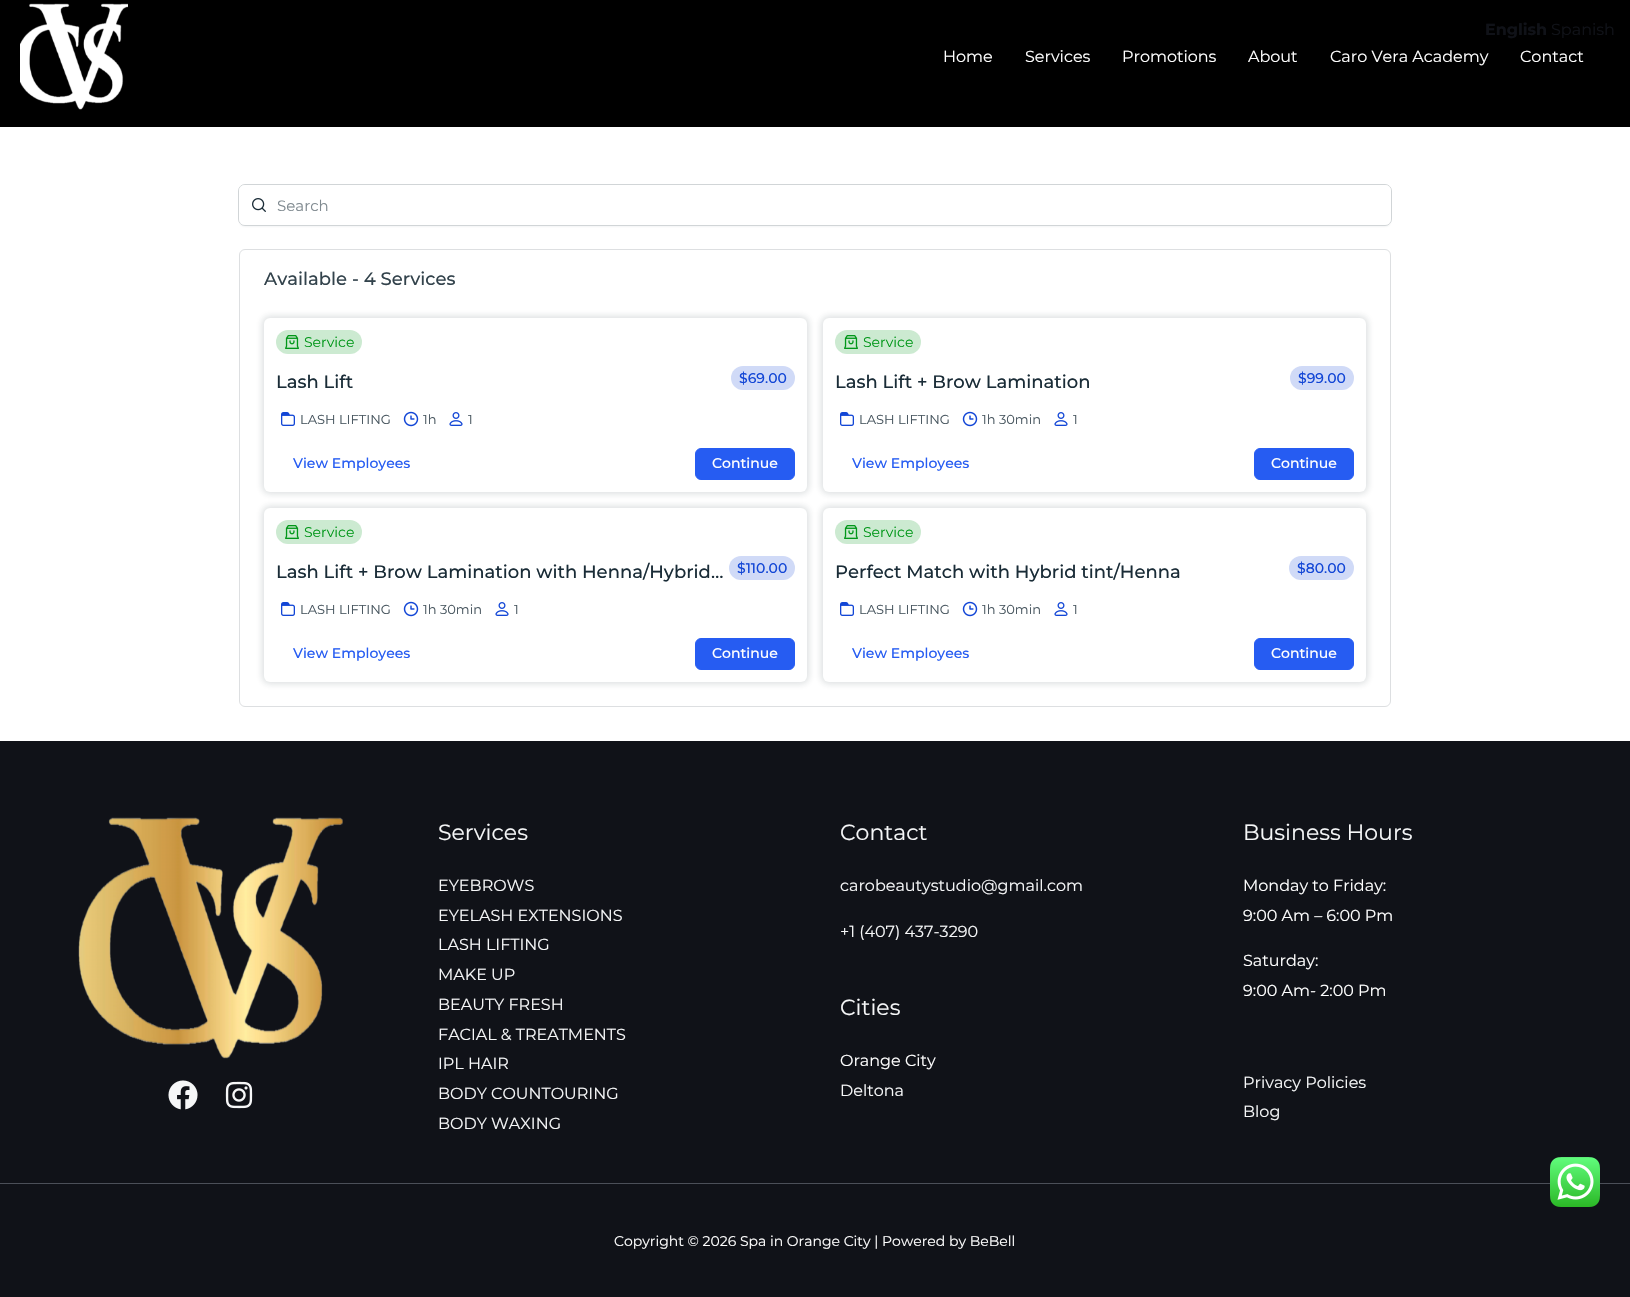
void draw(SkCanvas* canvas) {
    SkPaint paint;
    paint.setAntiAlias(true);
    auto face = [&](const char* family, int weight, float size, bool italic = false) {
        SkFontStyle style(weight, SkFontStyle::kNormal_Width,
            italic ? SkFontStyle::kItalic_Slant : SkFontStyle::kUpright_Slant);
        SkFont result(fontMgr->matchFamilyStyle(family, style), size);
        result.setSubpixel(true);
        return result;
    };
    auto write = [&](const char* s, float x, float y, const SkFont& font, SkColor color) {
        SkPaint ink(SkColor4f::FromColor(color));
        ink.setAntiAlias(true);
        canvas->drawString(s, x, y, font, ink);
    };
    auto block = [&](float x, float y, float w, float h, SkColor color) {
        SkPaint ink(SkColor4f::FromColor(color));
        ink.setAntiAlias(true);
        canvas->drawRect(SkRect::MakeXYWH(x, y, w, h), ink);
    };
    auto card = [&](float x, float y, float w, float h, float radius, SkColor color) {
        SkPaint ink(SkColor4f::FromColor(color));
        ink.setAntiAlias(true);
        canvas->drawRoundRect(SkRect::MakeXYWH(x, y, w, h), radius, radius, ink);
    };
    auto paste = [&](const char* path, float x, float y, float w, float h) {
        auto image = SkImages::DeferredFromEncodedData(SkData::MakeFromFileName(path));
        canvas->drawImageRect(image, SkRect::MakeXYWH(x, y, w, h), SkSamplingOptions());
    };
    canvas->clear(SK_ColorWHITE);
    block(0, 0, 1630, 127, SK_ColorBLACK);
    auto kFont1 = face("Montserrat", 700, 16);
    write("English", 1485, 35, kFont1, SkColorSetRGB(16, 18, 24));
    auto kFont2 = face("Montserrat", 400, 16);
    write("Spanish", 1551, 35, kFont2, SkColorSetRGB(16, 18, 24));
    paste("pic1.png", 20, 3, 108, 107);
    write("Home", 943, 62, kFont2, SK_ColorWHITE);
    write("Services", 1025, 62, kFont2, SK_ColorWHITE);
    write("Promotions", 1122, 62, kFont2, SK_ColorWHITE);
    write("About", 1248, 62, kFont2, SK_ColorWHITE);
    write("Caro Vera Academy", 1330, 62, kFont2, SK_ColorWHITE);
    write("Contact", 1520, 62, kFont2, SK_ColorWHITE);
    paint.setColor(SkColorSetARGB(13, 26, 44, 55));
    paint.setMaskFilter(SkMaskFilter::MakeBlur(kNormal_SkBlurStyle, 1));
    canvas->drawRoundRect(SkRect::MakeXYWH(239, 187, 1152, 40), 6, 6, paint);
    paint.setMaskFilter(nullptr);
    paint.setStyle(SkPaint::kStroke_Style);
    paint.setStrokeWidth(1);
    paint.setColor(SkColorSetRGB(209, 213, 215));
    canvas->drawRoundRect(SkRect::MakeXYWH(238.5f, 184.5f, 1153, 41), 6.5f, 6.5f, paint);
    card(239, 185, 1152, 40, 6, SK_ColorWHITE);
    paste("pic2.png", 252, 198, 14, 14);
    auto kFont3 = face("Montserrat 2", 400, 15);
    write("Search", 277, 211, kFont3, SkColorSetRGB(128, 138, 144));
    paint.setColor(SkColorSetRGB(221, 223, 225));
    canvas->drawRoundRect(SkRect::MakeXYWH(239.5f, 249.5f, 1151, 457), 5.5f, 5.5f, paint);
    auto kFont4 = face("Montserrat", 500, 18);
    write("Available - 4 Services", 264, 285, kFont4, SkColorSetRGB(51, 67, 76));
    paint.setStyle(SkPaint::kFill_Style);
    paint.setColor(SkColorSetARGB(38, 26, 44, 55));
    paint.setMaskFilter(SkMaskFilter::MakeBlur(kNormal_SkBlurStyle, 3));
    canvas->drawRoundRect(SkRect::MakeXYWH(262, 316, 547, 178), 8, 8, paint);
    paint.setMaskFilter(nullptr);
    card(264, 318, 543, 174, 6, SK_ColorWHITE);
    card(276, 330, 86, 24, 12, SkColorSetRGB(204, 234, 209));
    paste("pic3.png", 285, 335, 14, 14);
    auto kFont5 = face("Montserrat 2", 400, 14);
    write("Service", 304, 347, kFont5, SkColorSetRGB(1, 151, 25));
    write("Lash Lift", 276, 388, kFont4, SkColorSetRGB(26, 44, 55));
    card(731, 366, 64, 24, 12, SkColorSetRGB(208, 218, 247));
    auto kFont6 = face("Montserrat", 500, 14);
    write("$69.00", 739, 383, kFont6, SkColorSetRGB(18, 70, 214));
    paste("pic4.png", 281, 412, 14, 14);
    auto kFont7 = face("Montserrat 2", 400, 13);
    write("LASH LIFTING", 300, 424, kFont7, SkColorSetRGB(72, 86, 95));
    paste("pic5.png", 403, 411, 16, 16);
    write("1h", 423, 424, kFont7, SkColorSetRGB(72, 86, 95));
    paste("pic6.png", 449, 412, 14, 14);
    write("1", 468, 424, kFont7, SkColorSetRGB(72, 86, 95));
    write("View Employees", 293, 468, kFont6, SkColorSetRGB(38, 92, 242));
    paint.setColor(SkColorSetRGB(38, 92, 242));
    canvas->drawRoundRect(SkRect::MakeXYWH(695.5f, 448.5f, 99, 31), 5.5f, 5.5f, paint);
    paint.setStyle(SkPaint::kStroke_Style);
    canvas->drawRoundRect(SkRect::MakeXYWH(695.5f, 448.5f, 99, 31), 5.5f, 5.5f, paint);
    write("Continue", 712, 468, kFont6, SK_ColorWHITE);
    paint.setStyle(SkPaint::kFill_Style);
    paint.setColor(SkColorSetARGB(38, 26, 44, 55));
    paint.setMaskFilter(SkMaskFilter::MakeBlur(kNormal_SkBlurStyle, 3));
    canvas->drawRoundRect(SkRect::MakeXYWH(821, 316, 547, 178), 8, 8, paint);
    paint.setMaskFilter(nullptr);
    card(823, 318, 543, 174, 6, SK_ColorWHITE);
    card(835, 330, 86, 24, 12, SkColorSetRGB(204, 234, 209));
    paste("pic3.png", 844, 335, 14, 14);
    write("Service", 863, 347, kFont5, SkColorSetRGB(1, 151, 25));
    write("Lash Lift + Brow Lamination", 835, 388, kFont4, SkColorSetRGB(26, 44, 55));
    card(1290, 366, 64, 24, 12, SkColorSetRGB(208, 218, 247));
    write("$99.00", 1298, 383, kFont6, SkColorSetRGB(18, 70, 214));
    paste("pic4.png", 840, 412, 14, 14);
    write("LASH LIFTING", 859, 424, kFont7, SkColorSetRGB(72, 86, 95));
    paste("pic5.png", 962, 411, 16, 16);
    write("1h 30min", 982, 424, kFont7, SkColorSetRGB(72, 86, 95));
    paste("pic6.png", 1054, 412, 14, 14);
    write("1", 1073, 424, kFont7, SkColorSetRGB(72, 86, 95));
    write("View Employees", 852, 468, kFont6, SkColorSetRGB(38, 92, 242));
    paint.setColor(SkColorSetRGB(38, 92, 242));
    canvas->drawRoundRect(SkRect::MakeXYWH(1254.5f, 448.5f, 99, 31), 5.5f, 5.5f, paint);
    paint.setStyle(SkPaint::kStroke_Style);
    canvas->drawRoundRect(SkRect::MakeXYWH(1254.5f, 448.5f, 99, 31), 5.5f, 5.5f, paint);
    write("Continue", 1271, 468, kFont6, SK_ColorWHITE);
    paint.setStyle(SkPaint::kFill_Style);
    paint.setColor(SkColorSetARGB(38, 26, 44, 55));
    paint.setMaskFilter(SkMaskFilter::MakeBlur(kNormal_SkBlurStyle, 3));
    canvas->drawRoundRect(SkRect::MakeXYWH(262, 506, 547, 178), 8, 8, paint);
    paint.setMaskFilter(nullptr);
    card(264, 508, 543, 174, 6, SK_ColorWHITE);
    card(276, 520, 86, 24, 12, SkColorSetRGB(204, 234, 209));
    paste("pic3.png", 285, 525, 14, 14);
    write("Service", 304, 537, kFont5, SkColorSetRGB(1, 151, 25));
    write("Lash Lift + Brow Lamination with Henna/Hybrid…", 276, 578, kFont4, SkColorSetRGB(26, 44, 55));
    card(729, 556, 66, 24, 12, SkColorSetRGB(208, 218, 247));
    write("$110.00", 737, 573, kFont6, SkColorSetRGB(18, 70, 214));
    paste("pic4.png", 281, 602, 14, 14);
    write("LASH LIFTING", 300, 614, kFont7, SkColorSetRGB(72, 86, 95));
    paste("pic5.png", 403, 601, 16, 16);
    write("1h 30min", 423, 614, kFont7, SkColorSetRGB(72, 86, 95));
    paste("pic6.png", 495, 602, 14, 14);
    write("1", 514, 614, kFont7, SkColorSetRGB(72, 86, 95));
    write("View Employees", 293, 658, kFont6, SkColorSetRGB(38, 92, 242));
    paint.setColor(SkColorSetRGB(38, 92, 242));
    canvas->drawRoundRect(SkRect::MakeXYWH(695.5f, 638.5f, 99, 31), 5.5f, 5.5f, paint);
    paint.setStyle(SkPaint::kStroke_Style);
    canvas->drawRoundRect(SkRect::MakeXYWH(695.5f, 638.5f, 99, 31), 5.5f, 5.5f, paint);
    write("Continue", 712, 658, kFont6, SK_ColorWHITE);
    paint.setStyle(SkPaint::kFill_Style);
    paint.setColor(SkColorSetARGB(38, 26, 44, 55));
    paint.setMaskFilter(SkMaskFilter::MakeBlur(kNormal_SkBlurStyle, 3));
    canvas->drawRoundRect(SkRect::MakeXYWH(821, 506, 547, 178), 8, 8, paint);
    paint.setMaskFilter(nullptr);
    card(823, 508, 543, 174, 6, SK_ColorWHITE);
    card(835, 520, 86, 24, 12, SkColorSetRGB(204, 234, 209));
    paste("pic3.png", 844, 525, 14, 14);
    write("Service", 863, 537, kFont5, SkColorSetRGB(1, 151, 25));
    write("Perfect Match with Hybrid tint/Henna", 835, 578, kFont4, SkColorSetRGB(26, 44, 55));
    card(1289, 556, 65, 24, 12, SkColorSetRGB(208, 218, 247));
    write("$80.00", 1297, 573, kFont6, SkColorSetRGB(18, 70, 214));
    paste("pic4.png", 840, 602, 14, 14);
    write("LASH LIFTING", 859, 614, kFont7, SkColorSetRGB(72, 86, 95));
    paste("pic5.png", 962, 601, 16, 16);
    write("1h 30min", 982, 614, kFont7, SkColorSetRGB(72, 86, 95));
    paste("pic6.png", 1054, 602, 14, 14);
    write("1", 1073, 614, kFont7, SkColorSetRGB(72, 86, 95));
    write("View Employees", 852, 658, kFont6, SkColorSetRGB(38, 92, 242));
    paint.setColor(SkColorSetRGB(38, 92, 242));
    canvas->drawRoundRect(SkRect::MakeXYWH(1254.5f, 638.5f, 99, 31), 5.5f, 5.5f, paint);
    paint.setStyle(SkPaint::kStroke_Style);
    canvas->drawRoundRect(SkRect::MakeXYWH(1254.5f, 638.5f, 99, 31), 5.5f, 5.5f, paint);
    write("Continue", 1271, 658, kFont6, SK_ColorWHITE);
    block(0, 741, 1630, 556, SkColorSetRGB(16, 18, 24));
    paste("pic7.png", 78, 817, 265, 242);
    paste("pic8.png", 168, 1080, 30, 30);
    paste("pic9.png", 225, 1081, 28, 28);
    auto kFont8 = face("Montserrat", 400, 22);
    write("Services", 438, 840, kFont8, SkColorSetRGB(246, 247, 248));
    write("EYEBROWS", 438, 891, kFont2, SkColorSetRGB(246, 247, 248));
    write("EYELASH EXTENSIONS", 438, 921, kFont2, SkColorSetRGB(246, 247, 248));
    write("LASH LIFTING", 438, 950, kFont2, SkColorSetRGB(246, 247, 248));
    write("MAKE UP", 438, 980, kFont2, SkColorSetRGB(246, 247, 248));
    write("BEAUTY FRESH", 438, 1010, kFont2, SkColorSetRGB(246, 247, 248));
    write("FACIAL & TREATMENTS", 438, 1040, kFont2, SkColorSetRGB(246, 247, 248));
    write("IPL HAIR", 438, 1069, kFont2, SkColorSetRGB(246, 247, 248));
    write("BODY COUNTOURING", 438, 1099, kFont2, SkColorSetRGB(246, 247, 248));
    write("BODY WAXING", 438, 1129, kFont2, SkColorSetRGB(246, 247, 248));
    write("Contact", 840, 840, kFont8, SkColorSetRGB(246, 247, 248));
    write("carobeautystudio@gmail.com", 840, 891, kFont2, SkColorSetRGB(246, 247, 248));
    write("+1 (407) 437-3290", 840, 937, kFont2, SkColorSetRGB(246, 247, 248));
    write("Cities", 840, 1015, kFont8, SkColorSetRGB(246, 247, 248));
    write("Orange City", 840, 1066, kFont2, SK_ColorWHITE);
    write("Deltona", 840, 1096, kFont2, SkColorSetRGB(246, 247, 248));
    write("Business Hours", 1243, 840, kFont8, SkColorSetRGB(246, 247, 248));
    write("Monday to Friday:", 1243, 891, kFont2, SK_ColorWHITE);
    write("9:00 Am – 6:00 Pm", 1243, 921, kFont2, SK_ColorWHITE);
    write("Saturday:", 1243, 966, kFont2, SK_ColorWHITE);
    write("9:00 Am- 2:00 Pm", 1243, 996, kFont2, SK_ColorWHITE);
    write("Privacy Policies", 1243, 1088, kFont2, SkColorSetRGB(246, 247, 248));
    write("Blog", 1243, 1117, kFont2, SkColorSetRGB(246, 247, 248));
    block(0, 1183, 1630, 1, SkColorSetRGB(75, 79, 88));
    auto kFont9 = face("Montserrat", 400, 14);
    write("Copyright © 2026 Spa in Orange City | Powered by BeBell", 614, 1246, kFont9, SK_ColorWHITE);
    paste("pic10.png", 1550, 1157, 50, 50);
}
